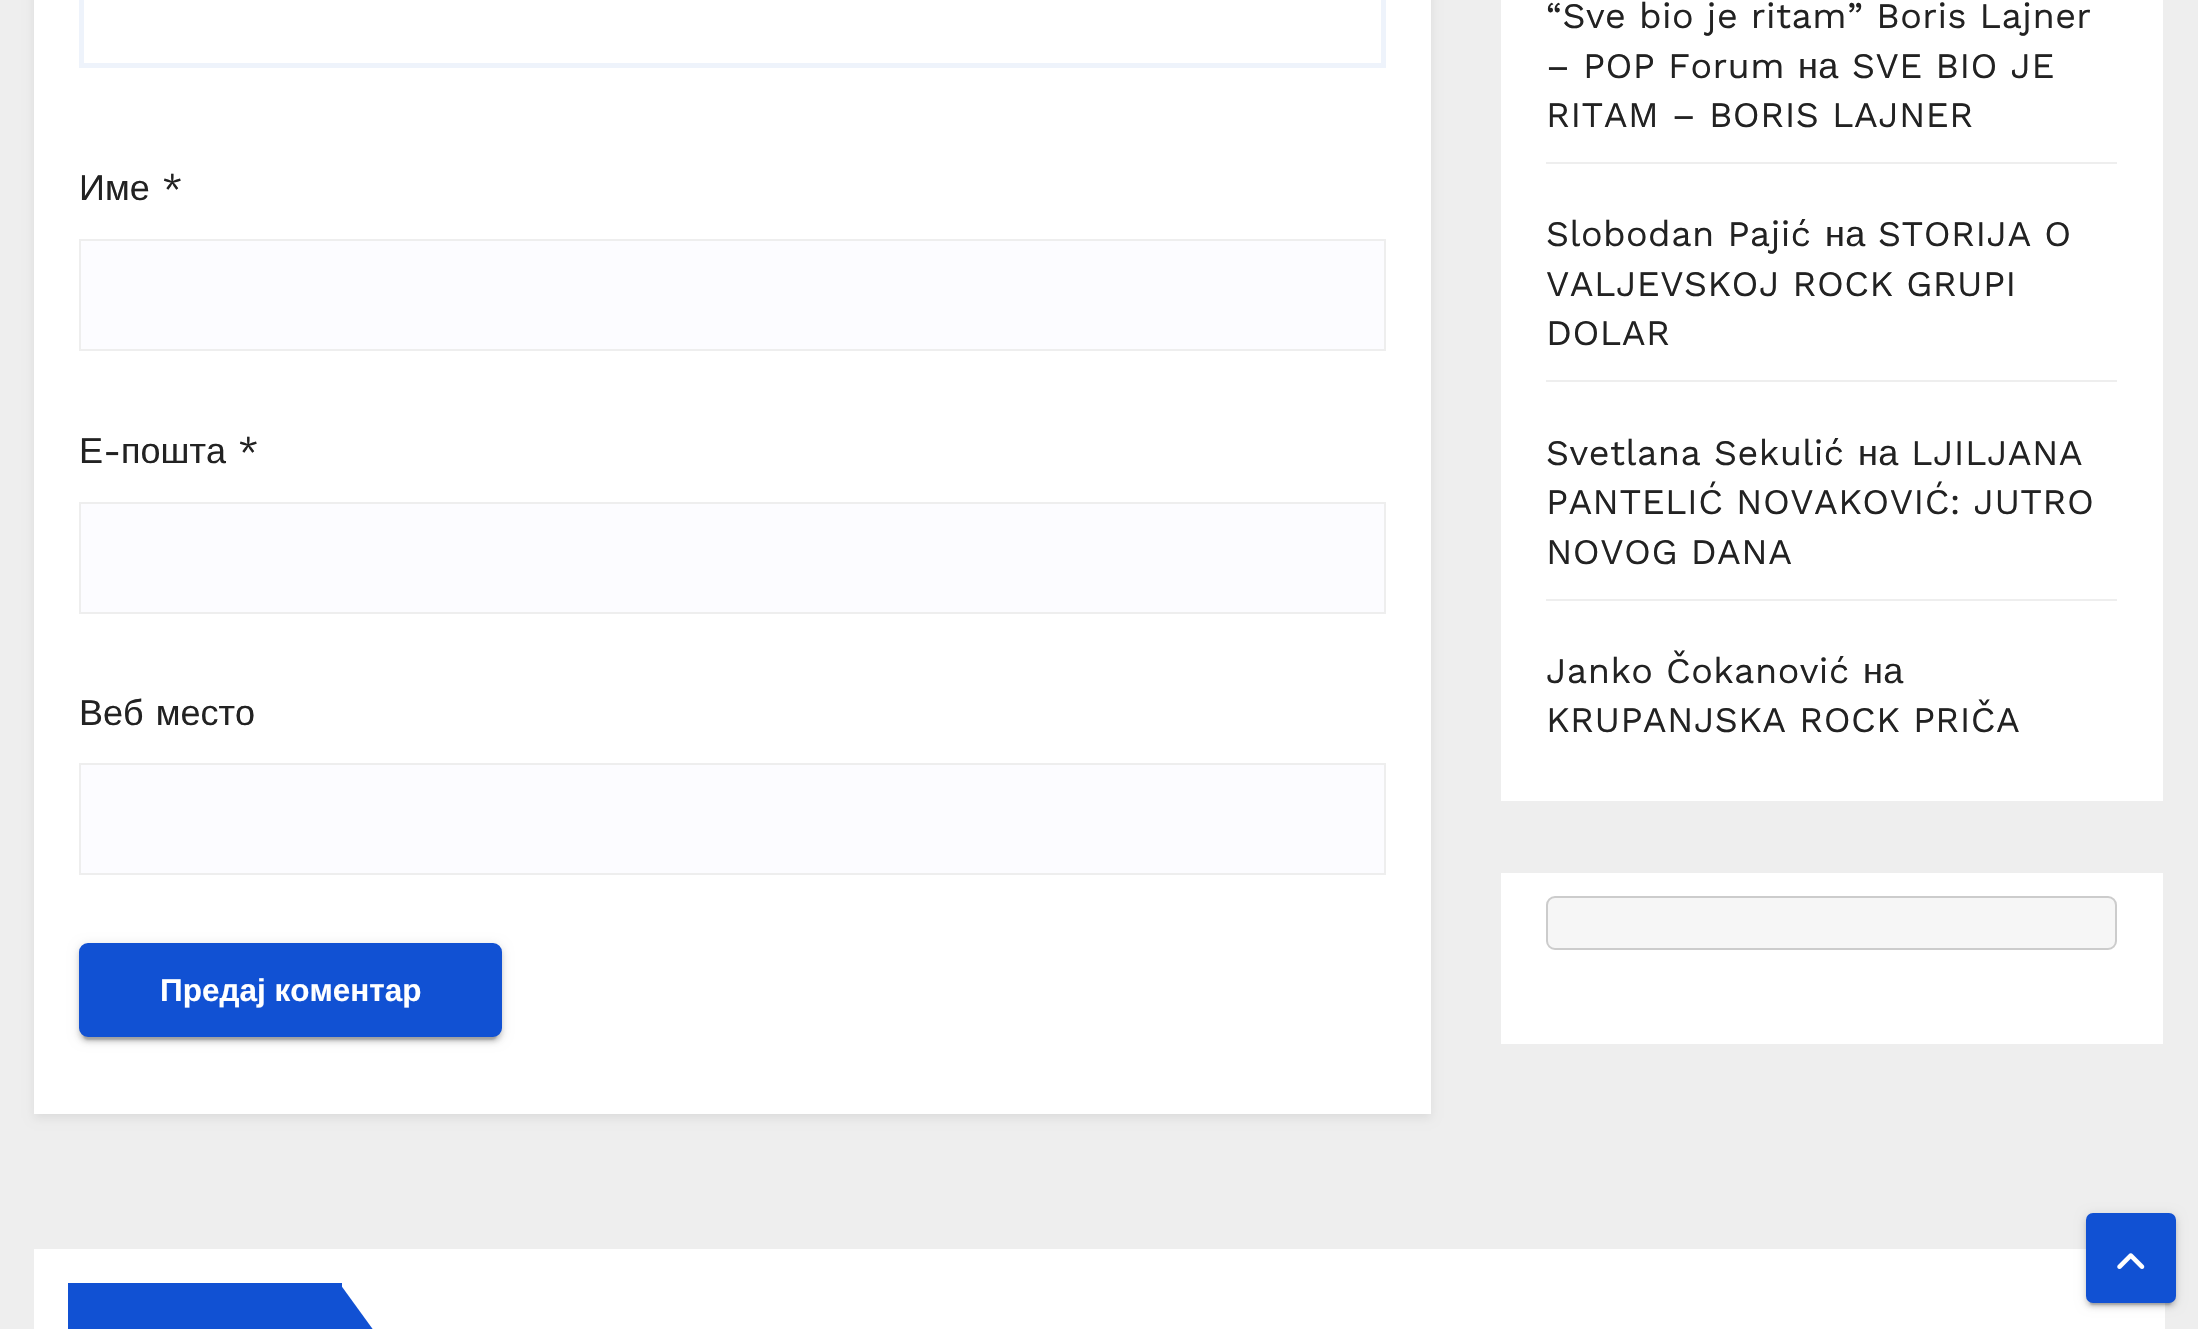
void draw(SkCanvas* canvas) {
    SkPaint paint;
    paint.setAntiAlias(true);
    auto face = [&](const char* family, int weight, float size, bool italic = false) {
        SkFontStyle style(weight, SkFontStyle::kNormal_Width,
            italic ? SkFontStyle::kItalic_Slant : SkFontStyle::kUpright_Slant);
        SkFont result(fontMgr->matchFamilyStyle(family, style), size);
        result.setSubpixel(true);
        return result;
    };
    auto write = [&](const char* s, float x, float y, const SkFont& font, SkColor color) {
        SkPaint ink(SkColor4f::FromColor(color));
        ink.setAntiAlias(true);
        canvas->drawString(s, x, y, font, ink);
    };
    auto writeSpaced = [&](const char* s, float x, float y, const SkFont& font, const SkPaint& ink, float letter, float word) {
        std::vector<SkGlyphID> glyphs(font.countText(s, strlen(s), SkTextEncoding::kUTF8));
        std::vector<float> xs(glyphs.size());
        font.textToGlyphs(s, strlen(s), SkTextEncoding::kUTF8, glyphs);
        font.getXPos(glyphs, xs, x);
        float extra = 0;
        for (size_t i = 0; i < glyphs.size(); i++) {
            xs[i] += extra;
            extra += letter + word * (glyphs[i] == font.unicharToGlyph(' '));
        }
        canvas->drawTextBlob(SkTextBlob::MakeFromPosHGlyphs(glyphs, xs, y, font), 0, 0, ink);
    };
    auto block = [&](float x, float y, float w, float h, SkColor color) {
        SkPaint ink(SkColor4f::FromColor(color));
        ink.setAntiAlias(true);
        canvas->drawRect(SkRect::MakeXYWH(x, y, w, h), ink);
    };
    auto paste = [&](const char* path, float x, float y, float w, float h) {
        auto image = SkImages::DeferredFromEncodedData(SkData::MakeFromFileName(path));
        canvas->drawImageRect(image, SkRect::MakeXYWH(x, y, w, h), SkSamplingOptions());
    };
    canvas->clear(SkColorSetRGB(238, 238, 238));
    paint.setColor(SkColorSetARGB(20, 0, 0, 0));
    paint.setMaskFilter(SkMaskFilter::MakeBlur(kNormal_SkBlurStyle, 4.5f));
    canvas->drawRect(SkRect::MakeXYWH(34, -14, 1397, 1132), paint);
    paint.setMaskFilter(nullptr);
    block(34, 0, 1397, 1114, SK_ColorWHITE);
    paint.setStyle(SkPaint::kStroke_Style);
    paint.setStrokeWidth(5);
    paint.setColor(SkColorSetRGB(238, 243, 251));
    canvas->drawRect(SkRect::MakeXYWH(81.5f, -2.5f, 1302, 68), paint);
    auto kFont1 = face("Liberation Sans", 400, 36);
    write("Име", 79, 200, kFont1, SkColorSetRGB(34, 34, 34));
    auto kFont2 = face("Work Sans", 400, 36);
    write("*", 162, 200, kFont2, SkColorSetRGB(34, 34, 34));
    paint.setStyle(SkPaint::kFill_Style);
    paint.setColor(SkColorSetRGB(252, 252, 255));
    canvas->drawRect(SkRect::MakeXYWH(80, 240, 1305, 110), paint);
    paint.setStyle(SkPaint::kStroke_Style);
    paint.setStrokeWidth(2);
    paint.setColor(SkColorSetRGB(238, 238, 238));
    canvas->drawRect(SkRect::MakeXYWH(80, 240, 1305, 110), paint);
    write("Е", 79, 463, kFont1, SkColorSetRGB(34, 34, 34));
    write("-", 103, 463, kFont2, SkColorSetRGB(34, 34, 34));
    write("пошта", 121, 463, kFont1, SkColorSetRGB(34, 34, 34));
    write("*", 238, 463, kFont2, SkColorSetRGB(34, 34, 34));
    paint.setStyle(SkPaint::kFill_Style);
    paint.setColor(SkColorSetRGB(252, 252, 255));
    canvas->drawRect(SkRect::MakeXYWH(80, 503, 1305, 110), paint);
    paint.setStyle(SkPaint::kStroke_Style);
    paint.setColor(SkColorSetRGB(238, 238, 238));
    canvas->drawRect(SkRect::MakeXYWH(80, 503, 1305, 110), paint);
    paint.setStyle(SkPaint::kFill_Style);
    paint.setColor(SkColorSetRGB(34, 34, 34));
    writeSpaced("Веб место", 79, 725, kFont1, paint, 0, 2);
    paint.setColor(SkColorSetRGB(252, 252, 255));
    canvas->drawRect(SkRect::MakeXYWH(80, 764, 1305, 110), paint);
    paint.setStyle(SkPaint::kStroke_Style);
    paint.setColor(SkColorSetRGB(238, 238, 238));
    canvas->drawRect(SkRect::MakeXYWH(80, 764, 1305, 110), paint);
    paint.setStyle(SkPaint::kFill_Style);
    paint.setColor(SkColorSetARGB(31, 0, 0, 0));
    paint.setMaskFilter(SkMaskFilter::MakeBlur(kNormal_SkBlurStyle, 5.5f));
    canvas->drawRoundRect(SkRect::MakeXYWH(79, 945, 423, 95), 9, 9, paint);
    paint.setMaskFilter(nullptr);
    paint.setColor(SkColorSetARGB(51, 0, 0, 0));
    paint.setMaskFilter(SkMaskFilter::MakeBlur(kNormal_SkBlurStyle, 1));
    canvas->drawRoundRect(SkRect::MakeXYWH(83, 954, 414, 86), 5, 5, paint);
    paint.setMaskFilter(nullptr);
    paint.setColor(SkColorSetARGB(36, 0, 0, 0));
    paint.setMaskFilter(SkMaskFilter::MakeBlur(kNormal_SkBlurStyle, 2));
    canvas->drawRoundRect(SkRect::MakeXYWH(79, 947, 423, 95), 9, 9, paint);
    paint.setMaskFilter(nullptr);
    paint.setColor(SkColorSetRGB(17, 81, 211));
    canvas->drawRoundRect(SkRect::MakeXYWH(80, 944, 421, 92), 8, 8, paint);
    paint.setStyle(SkPaint::kStroke_Style);
    canvas->drawRoundRect(SkRect::MakeXYWH(80, 944, 421, 92), 8, 8, paint);
    auto kFont3 = face("Liberation Sans", 700, 31.5f);
    write("Предај коментар", 160, 1001, kFont3, SK_ColorWHITE);
    block(1501, 0, 662, 801, SK_ColorWHITE);
    block(1546, 162, 571, 2, SkColorSetRGB(238, 238, 238));
    paint.setStyle(SkPaint::kFill_Style);
    paint.setColor(SkColorSetRGB(34, 34, 34));
    writeSpaced("“Sve bio je ritam” Boris Lajner", 1546, 28, kFont2, paint, 0.45f, 0);
    writeSpaced("– POP Forum", 1546, 78, kFont2, paint, 0.45f, 0);
    writeSpaced("на", 1798, 78, kFont1, paint, 0.45f, 0);
    writeSpaced("SVE BIO JE", 1852, 78, kFont2, paint, 0.45f, 0);
    writeSpaced("RITAM – BORIS LAJNER", 1546, 127, kFont2, paint, 0.45f, 0);
    block(1546, 380, 571, 2, SkColorSetRGB(238, 238, 238));
    writeSpaced("Slobodan Pajić", 1546, 246, kFont2, paint, 0.45f, 0);
    writeSpaced("на", 1825, 246, kFont1, paint, 0.45f, 0);
    writeSpaced("STORIJA O", 1878, 246, kFont2, paint, 0.45f, 0);
    writeSpaced("VALJEVSKOJ ROCK GRUPI", 1546, 296, kFont2, paint, 0.45f, 0);
    writeSpaced("DOLAR", 1546, 345, kFont2, paint, 0.45f, 0);
    block(1546, 599, 571, 2, SkColorSetRGB(238, 238, 238));
    writeSpaced("Svetlana Sekulić", 1546, 465, kFont2, paint, 0.45f, 0);
    writeSpaced("на", 1858, 465, kFont1, paint, 0.45f, 0);
    writeSpaced("LJILJANA", 1911, 465, kFont2, paint, 0.45f, 0);
    writeSpaced("PANTELIĆ NOVAKOVIĆ: JUTRO", 1546, 514, kFont2, paint, 0.45f, 0);
    writeSpaced("NOVOG DANA", 1546, 564, kFont2, paint, 0.45f, 0);
    writeSpaced("Janko Čokanović", 1546, 683, kFont2, paint, 0.45f, 0);
    writeSpaced("на", 1863, 683, kFont1, paint, 0.45f, 0);
    writeSpaced("KRUPANJSKA ROCK PRIČA", 1546, 732, kFont2, paint, 0.45f, 0);
    block(1501, 873, 662, 171, SK_ColorWHITE);
    paint.setColor(SkColorSetRGB(246, 246, 246));
    canvas->drawRoundRect(SkRect::MakeXYWH(1547, 897, 569, 52), 8, 8, paint);
    paint.setStyle(SkPaint::kStroke_Style);
    paint.setColor(SkColorSetRGB(204, 204, 204));
    canvas->drawRoundRect(SkRect::MakeXYWH(1547, 897, 569, 52), 8, 8, paint);
    block(34, 1249, 2131, 80, SK_ColorWHITE);
    block(68, 1283, 274, 46, SkColorSetRGB(17, 81, 211));
    paint.setStyle(SkPaint::kFill_Style);
    paint.setColor(SkColorSetRGB(17, 81, 211));
    canvas->drawPath(SkPathBuilder().moveTo(340, 1284).lineTo(340, 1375).lineTo(406, 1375).close().detach(), paint);
    paint.setColor(SkColorSetARGB(31, 0, 0, 0));
    paint.setMaskFilter(SkMaskFilter::MakeBlur(kNormal_SkBlurStyle, 5.5f));
    canvas->drawRoundRect(SkRect::MakeXYWH(2086, 1215, 90, 90), 7, 7, paint);
    paint.setMaskFilter(nullptr);
    paint.setColor(SkColorSetARGB(51, 0, 0, 0));
    paint.setMaskFilter(SkMaskFilter::MakeBlur(kNormal_SkBlurStyle, 1));
    canvas->drawRoundRect(SkRect::MakeXYWH(2090, 1224, 81, 81), 2, 2, paint);
    paint.setMaskFilter(nullptr);
    paint.setColor(SkColorSetARGB(36, 0, 0, 0));
    paint.setMaskFilter(SkMaskFilter::MakeBlur(kNormal_SkBlurStyle, 2));
    canvas->drawRoundRect(SkRect::MakeXYWH(2086, 1217, 90, 90), 7, 7, paint);
    paint.setMaskFilter(nullptr);
    paint.setColor(SkColorSetRGB(17, 81, 211));
    canvas->drawRoundRect(SkRect::MakeXYWH(2088.5f, 1215.5f, 85, 85), 4.5f, 4.5f, paint);
    paint.setStyle(SkPaint::kStroke_Style);
    paint.setStrokeWidth(5);
    canvas->drawRoundRect(SkRect::MakeXYWH(2088.5f, 1215.5f, 85, 85), 4.5f, 4.5f, paint);
    paste("pic1.png", 2117, 1253, 28, 16);
}
